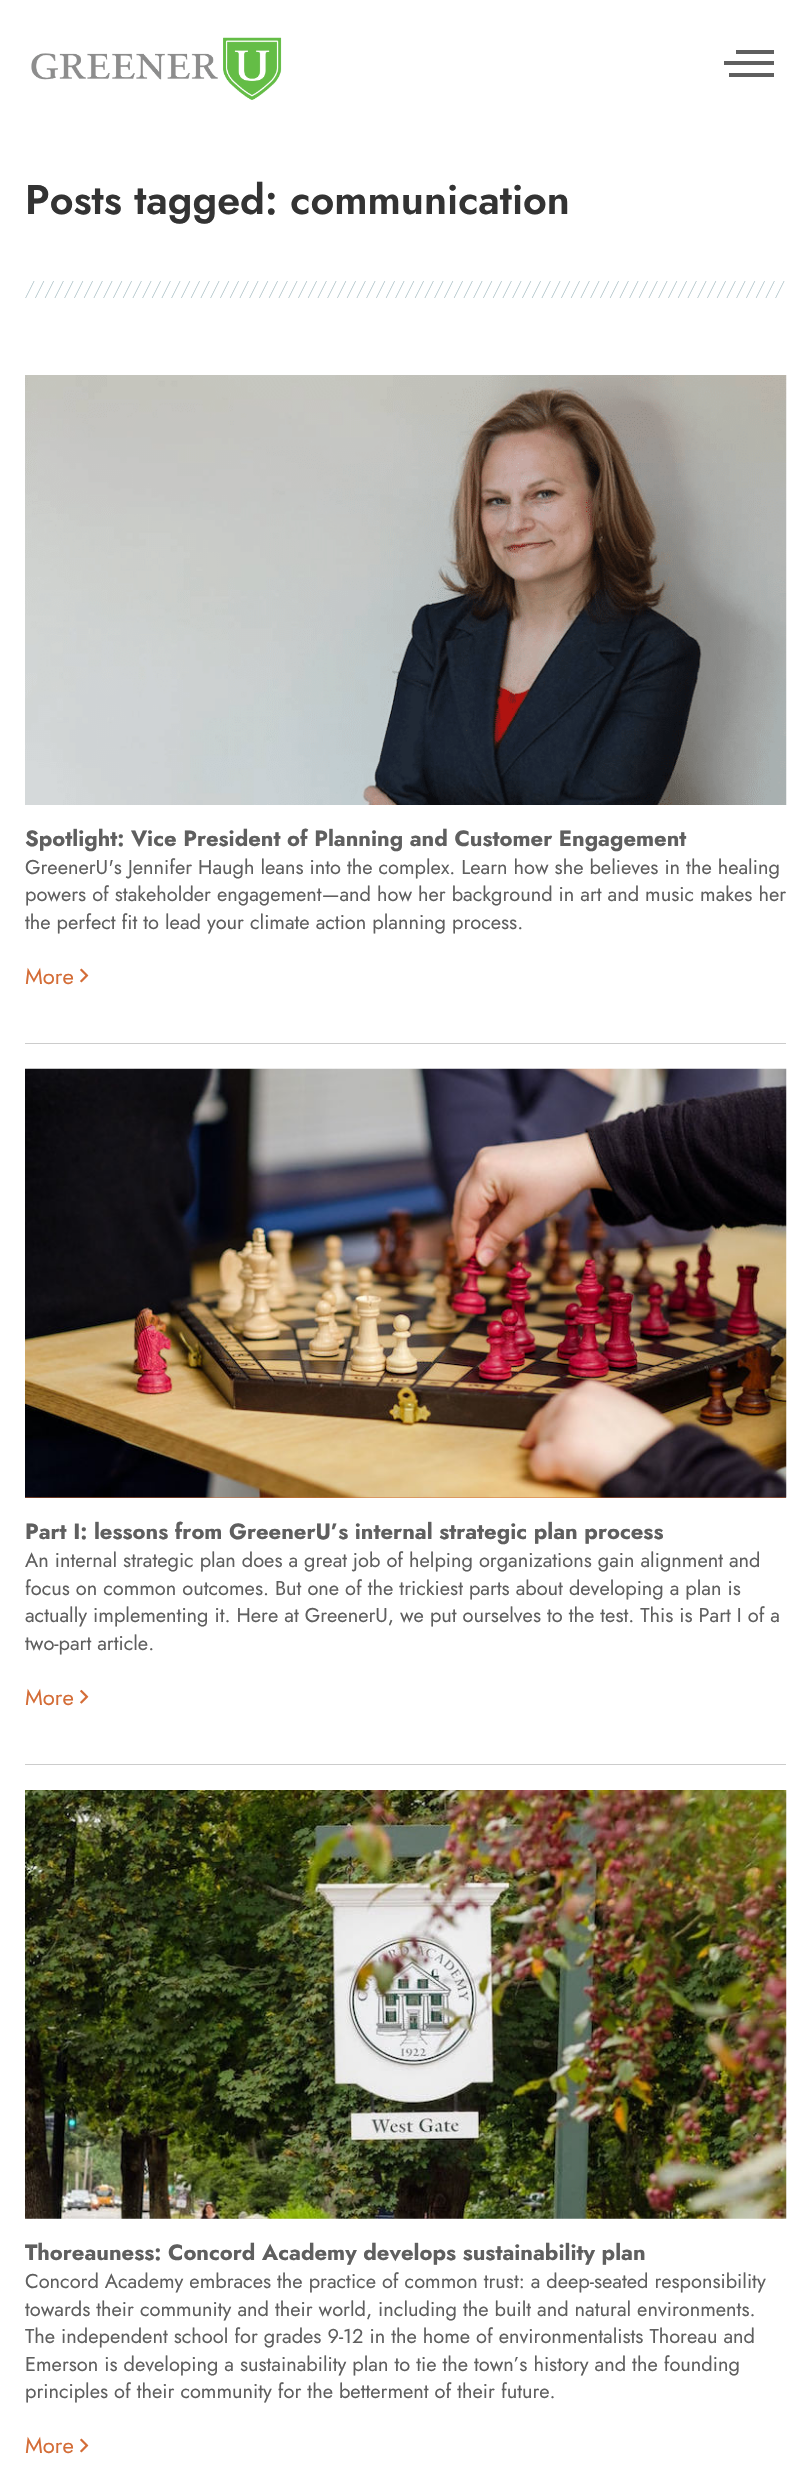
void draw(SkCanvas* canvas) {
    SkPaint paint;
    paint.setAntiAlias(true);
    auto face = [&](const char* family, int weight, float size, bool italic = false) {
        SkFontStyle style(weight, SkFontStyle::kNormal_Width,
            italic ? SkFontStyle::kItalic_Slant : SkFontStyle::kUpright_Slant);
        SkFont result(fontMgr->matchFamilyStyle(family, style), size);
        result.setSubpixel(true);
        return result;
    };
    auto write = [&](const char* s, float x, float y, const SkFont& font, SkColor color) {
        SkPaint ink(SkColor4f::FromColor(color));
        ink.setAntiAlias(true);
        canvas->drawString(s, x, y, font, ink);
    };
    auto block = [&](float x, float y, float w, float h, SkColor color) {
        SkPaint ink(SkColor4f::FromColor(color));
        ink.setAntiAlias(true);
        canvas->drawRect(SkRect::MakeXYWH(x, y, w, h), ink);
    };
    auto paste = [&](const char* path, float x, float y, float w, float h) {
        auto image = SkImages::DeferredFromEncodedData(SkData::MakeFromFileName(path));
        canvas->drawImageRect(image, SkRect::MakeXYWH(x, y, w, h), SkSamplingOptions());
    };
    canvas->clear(SK_ColorWHITE);
    paste("pic1.png", 31, 37, 251, 63);
    block(736, 50, 38, 4, SkColorSetRGB(95, 95, 95));
    block(724, 61, 50, 4, SkColorSetRGB(95, 95, 95));
    block(729, 73, 45, 4, SkColorSetRGB(95, 95, 95));
    auto kFont1 = face("Jost", 600, 41.25f);
    write("Posts tagged: communication", 25, 214, kFont1, SkColorSetRGB(51, 51, 51));
    auto kFont2 = face("Jost", 200, 20);
    write("//////////////////////////////////////////////////////////////////////////////", 25, 295, kFont2, SkColorSetRGB(167, 190, 196));
    block(25, 1043, 761, 1, SkColorSetRGB(204, 204, 204));
    paste("pic2.png", 25, 375, 762, 430);
    auto kFont3 = face("Jost", 700, 22);
    write("Spotlight: Vice President of Planning and Customer Engagement", 25, 846, kFont3, SkColorSetRGB(95, 95, 95));
    auto kFont4 = face("Jost", 400, 20);
    write("GreenerU's Jennifer Haugh leans into the complex. Learn how she believes in the healing", 25, 874, kFont4, SkColorSetRGB(95, 95, 95));
    write("powers of stakeholder engagement—and how her background in art and music makes her", 25, 901, kFont4, SkColorSetRGB(95, 95, 95));
    write("the perfect fit to lead your climate action planning process.", 25, 929, kFont4, SkColorSetRGB(95, 95, 95));
    auto kFont5 = face("Jost", 400, 22);
    write("More", 25, 984, kFont5, SkColorSetRGB(212, 109, 55));
    paste("pic3.png", 80, 968, 9, 15);
    block(25, 1764, 761, 1, SkColorSetRGB(204, 204, 204));
    block(25, 1497, 761, 1, SkColorSetRGB(212, 109, 55));
    paste("pic4.png", 25, 1068, 762, 430);
    write("Part I: lessons from GreenerU’s internal strategic plan process", 25, 1539, kFont3, SkColorSetRGB(95, 95, 95));
    write("An internal strategic plan does a great job of helping organizations gain alignment and", 25, 1567, kFont4, SkColorSetRGB(95, 95, 95));
    write("focus on common outcomes. But one of the trickiest parts about developing a plan is", 25, 1595, kFont4, SkColorSetRGB(95, 95, 95));
    write("actually implementing it. Here at GreenerU, we put ourselves to the test. This is Part I of a", 25, 1622, kFont4, SkColorSetRGB(95, 95, 95));
    write("two-part article.", 25, 1650, kFont4, SkColorSetRGB(95, 95, 95));
    write("More", 25, 1705, kFont5, SkColorSetRGB(212, 109, 55));
    paste("pic5.png", 80, 1689, 9, 15);
    paste("pic6.png", 25, 1790, 762, 429);
    write("Thoreauness: Concord Academy develops sustainability plan", 25, 2260, kFont3, SkColorSetRGB(95, 95, 95));
    write("Concord Academy embraces the practice of common trust: a deep-seated responsibility", 25, 2288, kFont4, SkColorSetRGB(95, 95, 95));
    write("towards their community and their world, including the built and natural environments.", 25, 2316, kFont4, SkColorSetRGB(95, 95, 95));
    write("The independent school for grades 9-12 in the home of environmentalists Thoreau and", 25, 2343, kFont4, SkColorSetRGB(95, 95, 95));
    write("Emerson is developing a sustainability plan to tie the town’s history and the founding", 25, 2371, kFont4, SkColorSetRGB(95, 95, 95));
    write("principles of their community for the betterment of their future.", 25, 2398, kFont4, SkColorSetRGB(95, 95, 95));
    write("More", 25, 2453, kFont5, SkColorSetRGB(212, 109, 55));
    paste("pic3.png", 80, 2438, 9, 15);
}
